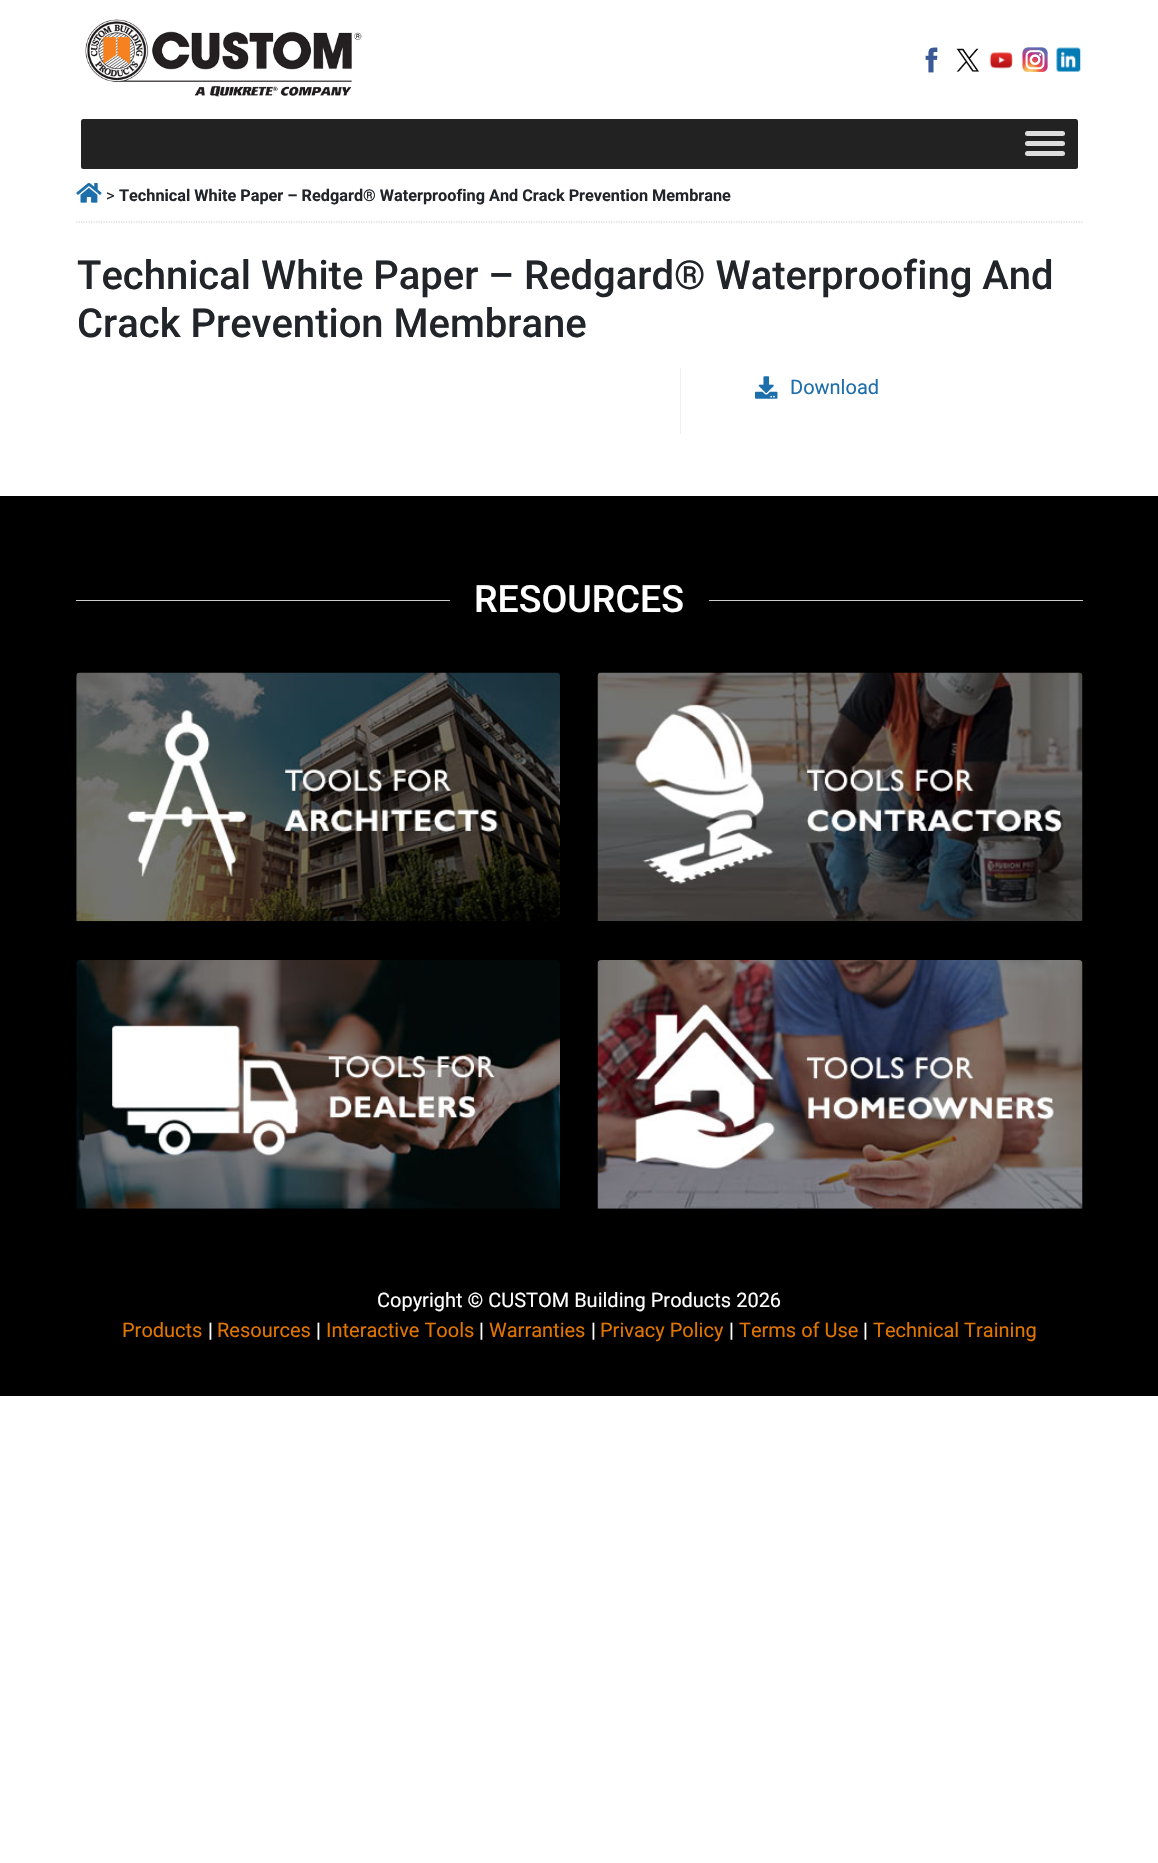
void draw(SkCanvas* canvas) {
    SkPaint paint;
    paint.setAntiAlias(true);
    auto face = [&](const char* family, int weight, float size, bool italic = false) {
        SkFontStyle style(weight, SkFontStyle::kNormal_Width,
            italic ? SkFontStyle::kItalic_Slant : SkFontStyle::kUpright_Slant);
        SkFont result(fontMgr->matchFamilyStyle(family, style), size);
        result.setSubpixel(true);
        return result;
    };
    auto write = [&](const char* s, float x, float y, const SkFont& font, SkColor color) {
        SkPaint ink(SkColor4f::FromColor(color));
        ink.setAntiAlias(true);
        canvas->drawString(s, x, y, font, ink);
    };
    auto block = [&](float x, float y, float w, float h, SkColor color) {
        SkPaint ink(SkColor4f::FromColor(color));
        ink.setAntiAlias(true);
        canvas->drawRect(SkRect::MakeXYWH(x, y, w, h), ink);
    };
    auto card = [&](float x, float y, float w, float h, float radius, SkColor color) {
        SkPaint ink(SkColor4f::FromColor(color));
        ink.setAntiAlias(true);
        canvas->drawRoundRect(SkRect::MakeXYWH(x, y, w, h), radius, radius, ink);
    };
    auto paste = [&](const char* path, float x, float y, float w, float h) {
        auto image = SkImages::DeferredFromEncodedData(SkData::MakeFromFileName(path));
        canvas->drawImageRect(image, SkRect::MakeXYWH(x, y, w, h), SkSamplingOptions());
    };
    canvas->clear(SK_ColorWHITE);
    paste("pic1.png", 85, 19, 277, 78);
    paste("pic2.png", 925, 47, 13, 26);
    paste("pic3.png", 956, 48, 23, 24);
    paste("pic4.png", 989, 52, 24, 17);
    paste("pic5.png", 1022, 47, 26, 25);
    paste("pic6.png", 1056, 47, 25, 25);
    card(81, 119, 997, 50, 2.5f, SkColorSetRGB(34, 34, 34));
    card(1025, 131, 40, 5, 2.5f, SkColorSetRGB(221, 221, 221));
    card(1025, 141, 40, 5, 2.5f, SkColorSetRGB(221, 221, 221));
    card(1025, 151, 40, 5, 2.5f, SkColorSetRGB(221, 221, 221));
    paint.setStyle(SkPaint::kStroke_Style);
    paint.setStrokeWidth(1.2f);
    paint.setColor(SkColorSetRGB(204, 204, 204));
    paint.setPathEffect(SkDashPathEffect::Make({{1.25f, 1.25f}}, 0));
    canvas->drawPath(SkPathBuilder().moveTo(76, 222).lineTo(1082.5f, 222).detach(), paint);
    paint.setPathEffect(nullptr);
    paste("pic7.png", 76, 183, 26, 20);
    auto kFont1 = face("Roboto", 400, 16.25f);
    write(">", 106, 201, kFont1, SkColorSetRGB(33, 37, 41));
    auto kFont2 = face("Roboto", 700, 16.25f);
    write("Technical White Paper – Redgard® Waterproofing And Crack Prevention Membrane", 119, 201, kFont2, SkColorSetRGB(33, 37, 41));
    auto kFont3 = face("Roboto", 500, 40);
    write("Technical White Paper – Redgard® Waterproofing And", 77, 289, kFont3, SkColorSetRGB(33, 37, 41));
    write("Crack Prevention Membrane", 77, 337, kFont3, SkColorSetRGB(33, 37, 41));
    block(680, 368, 1, 66, SkColorSetRGB(238, 238, 238));
    paste("pic8.png", 755, 376, 23, 23);
    auto kFont4 = face("Roboto", 400, 20);
    write("Download", 790, 394, kFont4, SkColorSetRGB(29, 111, 172));
    block(0, 496, 1158, 900, SK_ColorBLACK);
    block(76, 600, 374, 1, SkColorSetRGB(204, 204, 204));
    auto kFont5 = face("Roboto", 500, 37.5f);
    write("RESOURCES", 474, 612, kFont5, SK_ColorWHITE);
    block(709, 600, 374, 1, SkColorSetRGB(204, 204, 204));
    paste("pic9.png", 76, 672, 484, 250);
    paste("pic10.png", 597, 672, 486, 250);
    paste("pic11.png", 76, 960, 484, 249);
    paste("pic12.png", 597, 960, 486, 249);
    write("Copyright © CUSTOM Building Products 2026", 377, 1307, kFont4, SK_ColorWHITE);
    write("Products", 122, 1337, kFont4, SkColorSetRGB(225, 117, 0));
    write("|", 208, 1337, kFont4, SK_ColorWHITE);
    write("Resources", 217, 1337, kFont4, SkColorSetRGB(225, 117, 0));
    write("|", 316, 1337, kFont4, SK_ColorWHITE);
    write("Interactive Tools", 326, 1337, kFont4, SkColorSetRGB(225, 117, 0));
    write("|", 479, 1337, kFont4, SK_ColorWHITE);
    write("Warranties", 489, 1337, kFont4, SkColorSetRGB(225, 117, 0));
    write("|", 591, 1337, kFont4, SK_ColorWHITE);
    write("Privacy Policy", 600, 1337, kFont4, SkColorSetRGB(225, 117, 0));
    write("|", 729, 1337, kFont4, SK_ColorWHITE);
    write("Terms of Use", 739, 1337, kFont4, SkColorSetRGB(225, 117, 0));
    write("|", 863, 1337, kFont4, SK_ColorWHITE);
    write("Technical Training", 873, 1337, kFont4, SkColorSetRGB(225, 117, 0));
}
